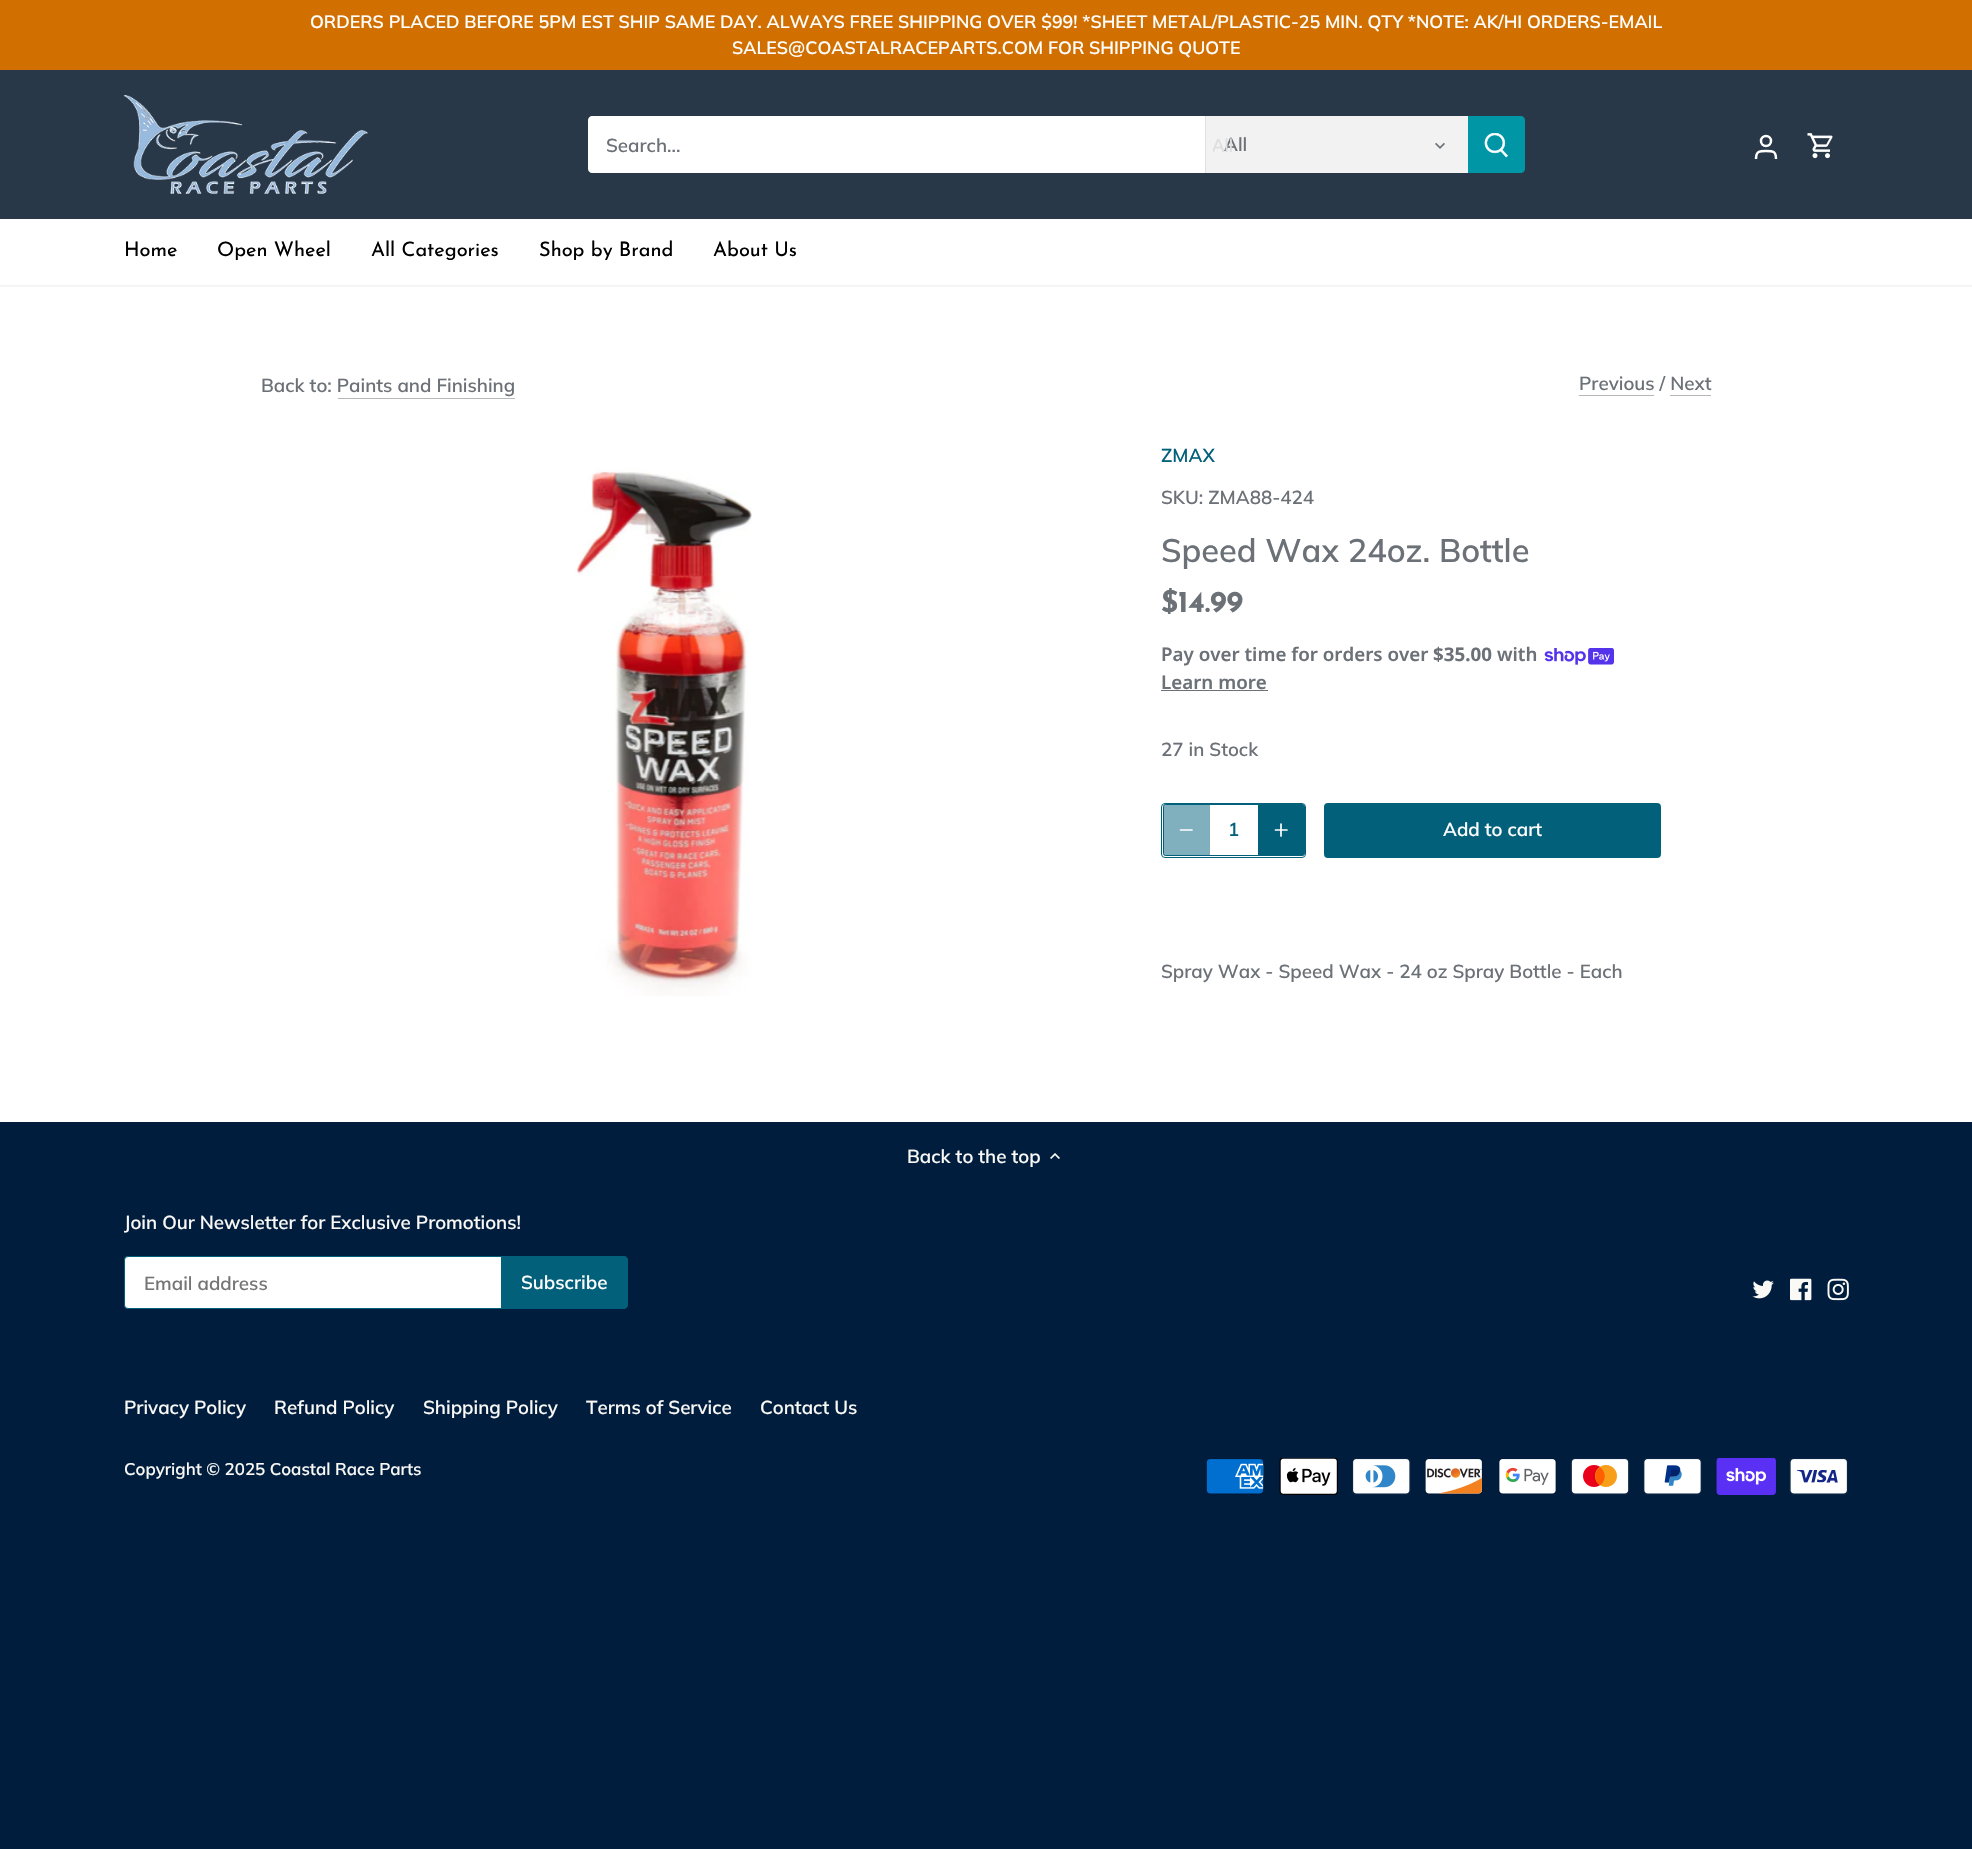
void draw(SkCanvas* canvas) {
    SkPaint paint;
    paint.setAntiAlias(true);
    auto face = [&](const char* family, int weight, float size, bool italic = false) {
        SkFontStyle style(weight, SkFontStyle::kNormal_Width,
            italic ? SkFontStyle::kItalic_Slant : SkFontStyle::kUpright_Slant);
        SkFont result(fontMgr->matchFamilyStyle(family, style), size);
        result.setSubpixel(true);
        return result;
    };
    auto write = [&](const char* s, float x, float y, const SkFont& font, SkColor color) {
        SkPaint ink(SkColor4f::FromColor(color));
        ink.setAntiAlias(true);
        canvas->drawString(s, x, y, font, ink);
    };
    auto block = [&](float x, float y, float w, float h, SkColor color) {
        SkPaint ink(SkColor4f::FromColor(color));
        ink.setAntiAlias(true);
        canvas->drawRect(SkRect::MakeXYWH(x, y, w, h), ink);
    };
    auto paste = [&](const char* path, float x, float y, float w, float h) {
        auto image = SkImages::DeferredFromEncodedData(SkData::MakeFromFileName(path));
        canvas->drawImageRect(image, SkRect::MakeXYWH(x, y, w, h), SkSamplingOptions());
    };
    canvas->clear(SkColorSetRGB(0, 29, 61));
    block(0, 219, 1972, 903, SK_ColorWHITE);
    canvas->save();
    canvas->clipRect(SkRect::MakeXYWH(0, 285, 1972, 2));
    paint.setColor(SkColorSetARGB(20, 0, 0, 0));
    paint.setMaskFilter(SkMaskFilter::MakeBlur(kNormal_SkBlurStyle, 2));
    canvas->drawRect(SkRect::MakeXYWH(-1, 69, 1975, 217), paint);
    paint.setMaskFilter(nullptr);
    canvas->restore();
    block(0, 0, 1972, 70, SkColorSetRGB(209, 112, 0));
    auto kFont1 = face("Muli", 600, 17.8f);
    write("ORDERS PLACED BEFORE 5PM EST SHIP SAME DAY. ALWAYS FREE SHIPPING OVER $99! *SHEET METAL/PLASTIC-25 MIN. QTY *NOTE: AK/HI ORDERS-EMAIL", 310, 28, kFont1, SK_ColorWHITE);
    write("SALES@COASTALRACEPARTS.COM FOR SHIPPING QUOTE", 732, 54, kFont1, SK_ColorWHITE);
    block(0, 70, 1972, 149, SkColorSetRGB(41, 56, 73));
    paste("pic1.png", 123, 95, 245, 99);
    paint.setColor(SK_ColorWHITE);
    canvas->drawPath(SkPathBuilder().moveTo(592, 116).lineTo(1205, 116).lineTo(1205, 173).lineTo(592, 173).cubicTo(590, 173, 588, 171, 588, 169).lineTo(588, 120).cubicTo(588, 118, 590, 116, 592, 116).close().detach(), paint);
    auto kFont2 = face("Muli", 600, 18.75f);
    write("Search...", 606, 152, kFont2, SkColorSetRGB(107, 113, 119));
    block(1206, 116, 262, 57, SkColorSetRGB(242, 242, 242));
    block(1205, 116, 1, 57, SkColorSetRGB(224, 225, 226));
    write("All", 1224, 151, kFont2, SkColorSetRGB(107, 113, 119));
    canvas->save();
    canvas->clipRect(SkRect::MakeXYWH(1213, 133, 235, 23));
    auto kFont3 = face("Liberation Sans", 400, 18.75f);
    write("All", 1212, 152, kFont3, SkColorSetRGB(221, 222, 223));
    canvas->restore();
    paste("pic2.png", 1435, 142, 10, 7);
    paint.setColor(SkColorSetRGB(0, 150, 166));
    canvas->drawPath(SkPathBuilder().moveTo(1468, 116).lineTo(1521, 116).cubicTo(1523, 116, 1525, 118, 1525, 120).lineTo(1525, 169).cubicTo(1525, 171, 1523, 173, 1521, 173).lineTo(1468, 173).close().detach(), paint);
    paste("pic3.png", 1484, 133, 24, 25);
    paint.setStyle(SkPaint::kStroke_Style);
    paint.setStrokeWidth(2.5f);
    paint.setColor(SK_ColorWHITE);
    canvas->drawCircle(1766, 141, 5, paint);
    canvas->drawPath(SkPathBuilder().moveTo(1776, 159).cubicTo(1776, 151, 1773, 151, 1766, 151).cubicTo(1759.5f, 151, 1756, 151, 1756, 159).detach(), paint);
    paste("pic4.png", 1807, 133, 26, 26);
    auto kFont4 = face("Josefin Sans", 400, 20);
    write("Home", 124, 256, kFont4, SK_ColorBLACK);
    write("Open Wheel", 217, 256, kFont4, SK_ColorBLACK);
    write("All Categories", 371, 256, kFont4, SK_ColorBLACK);
    write("Shop by Brand", 539, 256, kFont4, SK_ColorBLACK);
    write("About Us", 713, 256, kFont4, SK_ColorBLACK);
    write("Back to: Paints and Finishing", 261, 392, kFont2, SkColorSetRGB(107, 113, 119));
    block(338, 398, 177, 1, SkColorSetRGB(181, 184, 187));
    write("Previous / Next", 1579, 390, kFont2, SkColorSetRGB(107, 113, 119));
    block(1579, 395, 75, 1, SkColorSetRGB(181, 184, 187));
    block(1670, 395, 41, 1, SkColorSetRGB(181, 184, 187));
    paste("pic5.png", 575, 469, 177, 527);
    write("ZMAX", 1161, 462, kFont2, SkColorSetRGB(2, 96, 123));
    write("SKU: ZMA88-424", 1161, 504, kFont2, SkColorSetRGB(107, 113, 119));
    auto kFont5 = face("Muli", 600, 32.5f);
    write("Speed Wax 24oz. Bottle", 1161, 562, kFont5, SkColorSetRGB(107, 113, 119));
    auto kFont6 = face("Josefin Sans", 700, 30);
    write("$14.99", 1161, 612, kFont6, SkColorSetRGB(107, 113, 119));
    auto kFont7 = face("Noto Sans", 600, 18.75f);
    write("Pay over time for orders over", 1161, 661, kFont7, SkColorSetRGB(107, 113, 119));
    auto kFont8 = face("Noto Sans", 700, 18.75f);
    write("$35.00", 1433, 661, kFont8, SkColorSetRGB(107, 113, 119));
    write("with", 1497, 661, kFont7, SkColorSetRGB(107, 113, 119));
    paste("pic6.png", 1544, 648, 70, 17);
    write("Learn more", 1161, 689, kFont7, SkColorSetRGB(107, 113, 119));
    block(1161, 690, 107, 1, SkColorSetRGB(107, 113, 119));
    write("27 in Stock", 1161, 756, kFont2, SkColorSetRGB(107, 113, 119));
    paint.setStrokeWidth(1);
    paint.setColor(SkColorSetRGB(2, 96, 123));
    canvas->drawRoundRect(SkRect::MakeXYWH(1163.5f, 804.5f, 141, 51), 2, 2, paint);
    canvas->drawRoundRect(SkRect::MakeXYWH(1161.5f, 803.5f, 144, 54), 3.5f, 3.5f, paint);
    paint.setStyle(SkPaint::kFill_Style);
    paint.setColor(SkColorSetARGB(128, 2, 96, 123));
    canvas->drawPath(SkPathBuilder().moveTo(1167, 804).lineTo(1210, 804).lineTo(1210, 856).lineTo(1167, 856).cubicTo(1165, 856, 1163, 854, 1163, 852).lineTo(1163, 808).cubicTo(1163, 806, 1165, 804, 1167, 804).close().detach(), paint);
    paint.setStyle(SkPaint::kStroke_Style);
    paint.setStrokeWidth(1.7f);
    paint.setStrokeCap(SkPaint::kRound_Cap);
    paint.setStrokeJoin(SkPaint::kRound_Join);
    paint.setColor(SK_ColorWHITE);
    canvas->drawPath(SkPathBuilder().moveTo(1180.5f, 830).lineTo(1192, 830).detach(), paint);
    write("1", 1228, 836, kFont2, SkColorSetRGB(2, 96, 123));
    paint.setStyle(SkPaint::kFill_Style);
    paint.setColor(SkColorSetRGB(2, 96, 123));
    canvas->drawPath(SkPathBuilder().moveTo(1258, 804).lineTo(1301, 804).cubicTo(1303, 804, 1305, 806, 1305, 808).lineTo(1305, 852).cubicTo(1305, 854, 1303, 856, 1301, 856).lineTo(1258, 856).close().detach(), paint);
    paint.setStyle(SkPaint::kStroke_Style);
    paint.setColor(SK_ColorWHITE);
    canvas->drawPath(SkPathBuilder().moveTo(1281, 824).lineTo(1281, 836).moveTo(1275.5f, 830).lineTo(1287, 830).detach(), paint);
    paint.setStyle(SkPaint::kFill_Style);
    paint.setColor(SkColorSetRGB(2, 96, 123));
    canvas->drawRoundRect(SkRect::MakeXYWH(1325.5f, 804.5f, 334, 52), 2.5f, 2.5f, paint);
    paint.setStyle(SkPaint::kStroke_Style);
    paint.setStrokeWidth(3);
    paint.setStrokeCap(SkPaint::kButt_Cap);
    paint.setStrokeJoin(SkPaint::kMiter_Join);
    canvas->drawRoundRect(SkRect::MakeXYWH(1325.5f, 804.5f, 334, 52), 2.5f, 2.5f, paint);
    write("Add to cart", 1443, 836, kFont2, SK_ColorWHITE);
    write("Spray Wax - Speed Wax - 24 oz Spray Bottle - Each", 1161, 978, kFont2, SkColorSetRGB(107, 113, 119));
    write("Back to the top", 907, 1163, kFont2, SkColorSetRGB(250, 249, 246));
    paste("pic7.png", 1050, 1153, 10, 6);
    write("Join Our Newsletter for Exclusive Promotions!", 124, 1229, kFont2, SkColorSetRGB(250, 249, 246));
    paint.setStyle(SkPaint::kFill_Style);
    paint.setColor(SK_ColorWHITE);
    canvas->drawRoundRect(SkRect::MakeXYWH(124.5f, 1256.5f, 501, 52), 3.5f, 3.5f, paint);
    paint.setStyle(SkPaint::kStroke_Style);
    paint.setStrokeWidth(1);
    paint.setColor(SkColorSetRGB(2, 96, 123));
    canvas->drawRoundRect(SkRect::MakeXYWH(124.5f, 1256.5f, 501, 52), 3.5f, 3.5f, paint);
    write("Email address", 144, 1290, kFont2, SkColorSetRGB(117, 117, 117));
    paint.setStyle(SkPaint::kFill_Style);
    canvas->drawPath(SkPathBuilder().moveTo(501.5f, 1256.5f).lineTo(624, 1256.5f).cubicTo(626, 1256.5f, 627.5f, 1258, 627.5f, 1260).lineTo(627.5f, 1305).cubicTo(627.5f, 1307, 626, 1308.5f, 624, 1308.5f).lineTo(501.5f, 1308.5f).close().detach(), paint);
    paint.setStyle(SkPaint::kStroke_Style);
    canvas->drawPath(SkPathBuilder().moveTo(501.5f, 1256.5f).lineTo(624, 1256.5f).cubicTo(626, 1256.5f, 627.5f, 1258, 627.5f, 1260).lineTo(627.5f, 1305).cubicTo(627.5f, 1307, 626, 1308.5f, 624, 1308.5f).lineTo(501.5f, 1308.5f).close().detach(), paint);
    write("Subscribe", 521, 1289, kFont2, SK_ColorWHITE);
    paste("pic8.png", 1752, 1280, 22, 19);
    paste("pic9.png", 1790, 1278, 22, 23);
    paste("pic10.png", 1827, 1278, 22, 23);
    write("Privacy Policy", 124, 1414, kFont2, SkColorSetRGB(250, 249, 246));
    write("Refund Policy", 274, 1414, kFont2, SkColorSetRGB(250, 249, 246));
    write("Shipping Policy", 423, 1414, kFont2, SkColorSetRGB(250, 249, 246));
    write("Terms of Service", 586, 1414, kFont2, SkColorSetRGB(250, 249, 246));
    write("Contact Us", 760, 1414, kFont2, SkColorSetRGB(250, 249, 246));
    auto kFont9 = face("Muli", 600, 16.9f);
    write("Copyright © 2025 Coastal Race Parts", 124, 1475, kFont9, SkColorSetRGB(250, 249, 246));
    paste("pic11.png", 1206, 1458, 58, 37);
    paste("pic12.png", 1279, 1458, 59, 37);
    paste("pic13.png", 1352, 1458, 59, 37);
    paste("pic14.png", 1424, 1458, 59, 37);
    paste("pic15.png", 1498, 1458, 59, 37);
    paste("pic16.png", 1570, 1458, 60, 37);
    paste("pic17.png", 1643, 1458, 59, 37);
    paste("pic18.png", 1716, 1458, 60, 37);
    paste("pic19.png", 1789, 1458, 59, 37);
}
